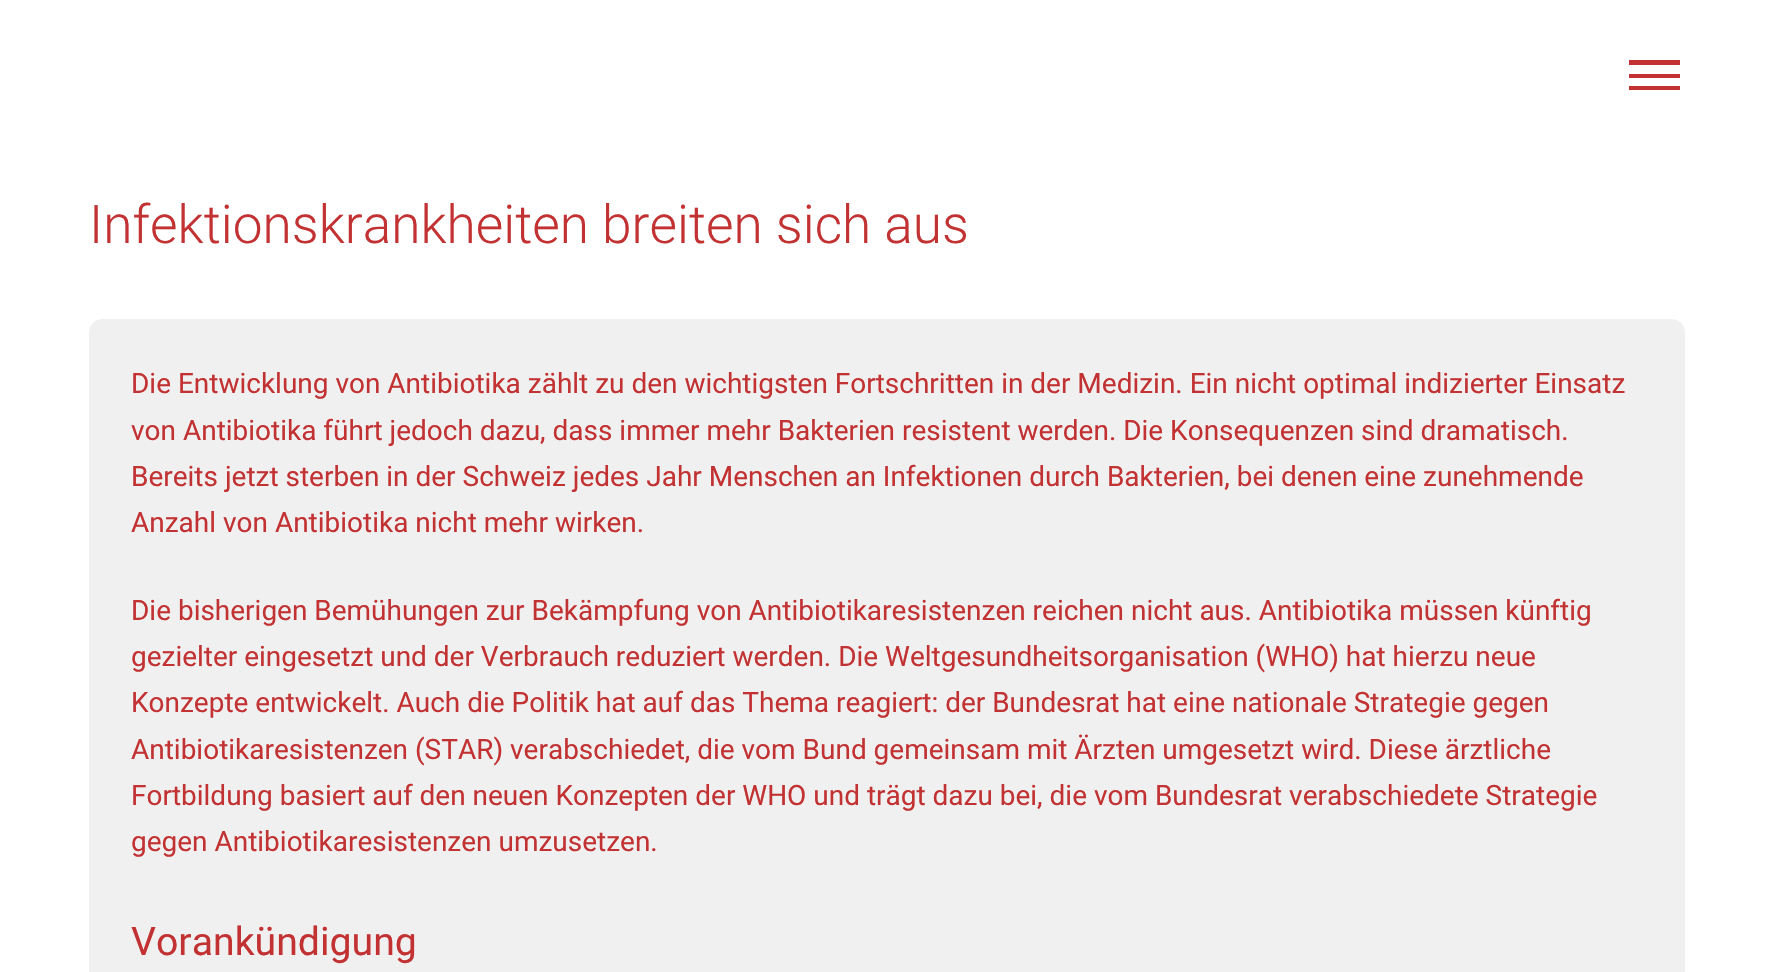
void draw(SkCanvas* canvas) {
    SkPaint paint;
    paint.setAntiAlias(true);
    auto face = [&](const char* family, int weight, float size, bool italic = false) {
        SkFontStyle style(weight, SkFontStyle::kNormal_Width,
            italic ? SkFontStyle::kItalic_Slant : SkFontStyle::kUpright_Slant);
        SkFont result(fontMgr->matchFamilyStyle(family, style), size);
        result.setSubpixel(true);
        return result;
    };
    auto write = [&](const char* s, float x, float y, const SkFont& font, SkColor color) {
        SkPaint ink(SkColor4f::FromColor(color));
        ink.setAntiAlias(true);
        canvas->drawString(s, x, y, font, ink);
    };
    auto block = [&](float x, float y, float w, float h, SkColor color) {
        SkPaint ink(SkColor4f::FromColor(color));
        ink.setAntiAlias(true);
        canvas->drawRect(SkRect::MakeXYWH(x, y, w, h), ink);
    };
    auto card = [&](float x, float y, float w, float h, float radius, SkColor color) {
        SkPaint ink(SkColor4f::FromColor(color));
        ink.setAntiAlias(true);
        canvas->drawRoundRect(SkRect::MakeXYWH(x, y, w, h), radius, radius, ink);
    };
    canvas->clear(SK_ColorWHITE);
    block(1629, 74, 51, 4, SkColorSetRGB(195, 50, 51));
    block(1629, 60, 51, 5, SkColorSetRGB(195, 50, 51));
    block(1629, 86, 51, 4, SkColorSetRGB(195, 50, 51));
    auto kFont1 = face("Roboto", 300, 53.25f);
    write("Infektionskrankheiten breiten sich aus", 89, 243, kFont1, SkColorSetRGB(195, 50, 51));
    card(89, 319, 1596, 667, 14, SkColorSetRGB(240, 240, 240));
    auto kFont2 = face("Roboto", 400, 28);
    write("Die Entwicklung von Antibiotika zählt zu den wichtigsten Fortschritten in der Medizin. Ein nicht optimal indizierter Einsatz", 131, 393, kFont2, SkColorSetRGB(195, 50, 51));
    write("von Antibiotika führt jedoch dazu, dass immer mehr Bakterien resistent werden. Die Konsequenzen sind dramatisch.", 131, 440, kFont2, SkColorSetRGB(195, 50, 51));
    write("Bereits jetzt sterben in der Schweiz jedes Jahr Menschen an Infektionen durch Bakterien, bei denen eine zunehmende", 131, 486, kFont2, SkColorSetRGB(195, 50, 51));
    write("Anzahl von Antibiotika nicht mehr wirken.", 131, 532, kFont2, SkColorSetRGB(195, 50, 51));
    write("Die bisherigen Bemühungen zur Bekämpfung von Antibiotikaresistenzen reichen nicht aus. Antibiotika müssen künftig", 131, 620, kFont2, SkColorSetRGB(195, 50, 51));
    write("gezielter eingesetzt und der Verbrauch reduziert werden. Die Weltgesundheitsorganisation (WHO) hat hierzu neue", 131, 666, kFont2, SkColorSetRGB(195, 50, 51));
    write("Konzepte entwickelt. Auch die Politik hat auf das Thema reagiert: der Bundesrat hat eine nationale Strategie gegen", 131, 712, kFont2, SkColorSetRGB(195, 50, 51));
    write("Antibiotikaresistenzen (STAR) verabschiedet, die vom Bund gemeinsam mit Ärzten umgesetzt wird. Diese ärztliche", 131, 759, kFont2, SkColorSetRGB(195, 50, 51));
    write("Fortbildung basiert auf den neuen Konzepten der WHO und trägt dazu bei, die vom Bundesrat verabschiedete Strategie", 131, 805, kFont2, SkColorSetRGB(195, 50, 51));
    write("gegen Antibiotikaresistenzen umzusetzen.", 131, 851, kFont2, SkColorSetRGB(195, 50, 51));
    auto kFont3 = face("Roboto", 400, 39.25f);
    write("Vorankündigung", 131, 955, kFont3, SkColorSetRGB(195, 50, 51));
}
